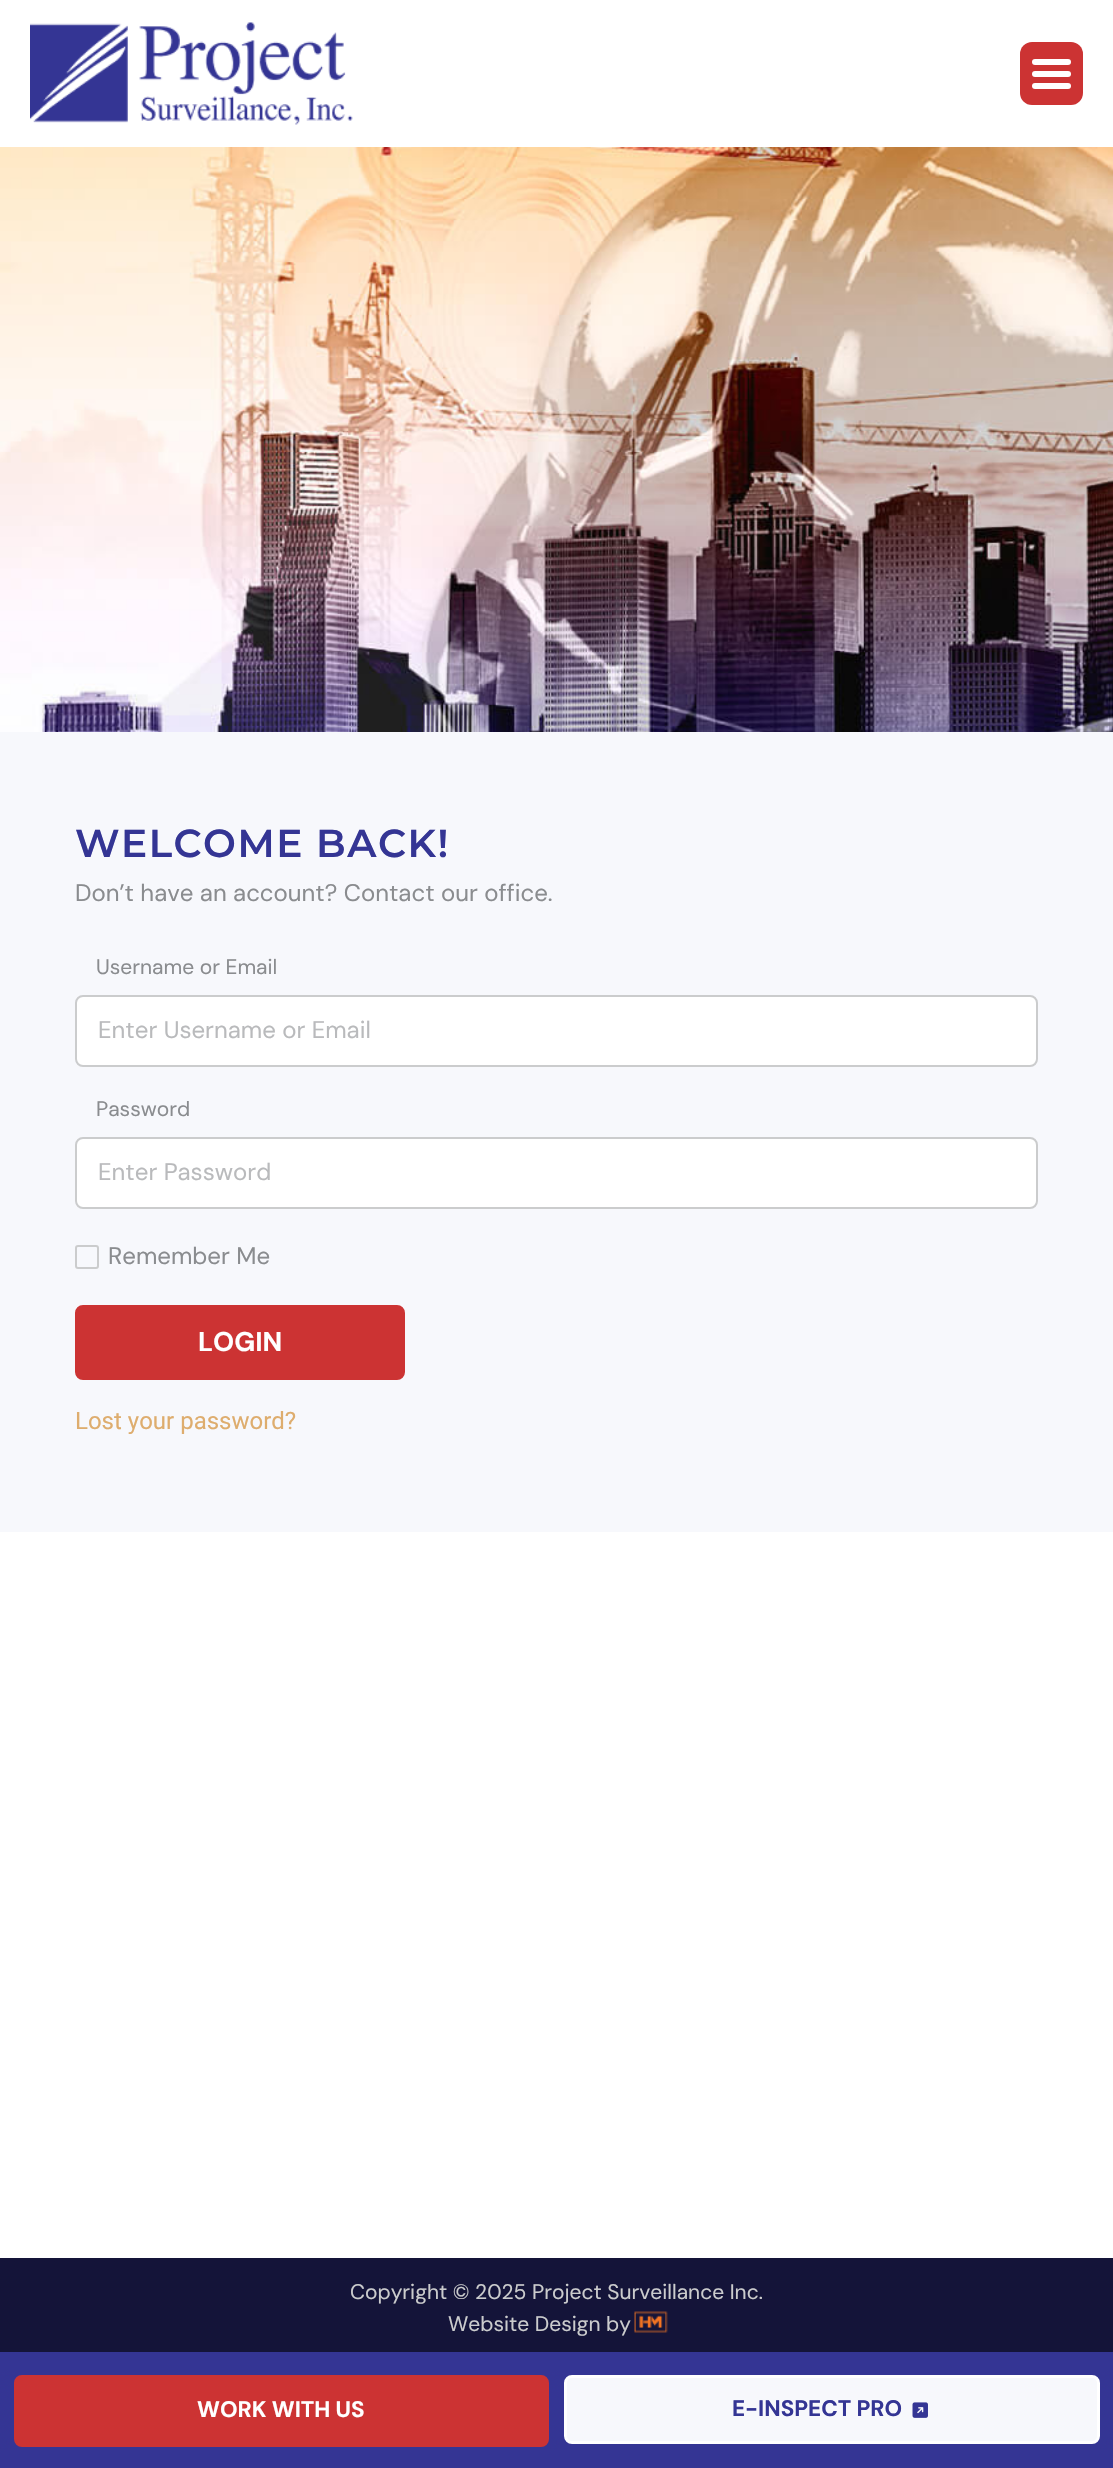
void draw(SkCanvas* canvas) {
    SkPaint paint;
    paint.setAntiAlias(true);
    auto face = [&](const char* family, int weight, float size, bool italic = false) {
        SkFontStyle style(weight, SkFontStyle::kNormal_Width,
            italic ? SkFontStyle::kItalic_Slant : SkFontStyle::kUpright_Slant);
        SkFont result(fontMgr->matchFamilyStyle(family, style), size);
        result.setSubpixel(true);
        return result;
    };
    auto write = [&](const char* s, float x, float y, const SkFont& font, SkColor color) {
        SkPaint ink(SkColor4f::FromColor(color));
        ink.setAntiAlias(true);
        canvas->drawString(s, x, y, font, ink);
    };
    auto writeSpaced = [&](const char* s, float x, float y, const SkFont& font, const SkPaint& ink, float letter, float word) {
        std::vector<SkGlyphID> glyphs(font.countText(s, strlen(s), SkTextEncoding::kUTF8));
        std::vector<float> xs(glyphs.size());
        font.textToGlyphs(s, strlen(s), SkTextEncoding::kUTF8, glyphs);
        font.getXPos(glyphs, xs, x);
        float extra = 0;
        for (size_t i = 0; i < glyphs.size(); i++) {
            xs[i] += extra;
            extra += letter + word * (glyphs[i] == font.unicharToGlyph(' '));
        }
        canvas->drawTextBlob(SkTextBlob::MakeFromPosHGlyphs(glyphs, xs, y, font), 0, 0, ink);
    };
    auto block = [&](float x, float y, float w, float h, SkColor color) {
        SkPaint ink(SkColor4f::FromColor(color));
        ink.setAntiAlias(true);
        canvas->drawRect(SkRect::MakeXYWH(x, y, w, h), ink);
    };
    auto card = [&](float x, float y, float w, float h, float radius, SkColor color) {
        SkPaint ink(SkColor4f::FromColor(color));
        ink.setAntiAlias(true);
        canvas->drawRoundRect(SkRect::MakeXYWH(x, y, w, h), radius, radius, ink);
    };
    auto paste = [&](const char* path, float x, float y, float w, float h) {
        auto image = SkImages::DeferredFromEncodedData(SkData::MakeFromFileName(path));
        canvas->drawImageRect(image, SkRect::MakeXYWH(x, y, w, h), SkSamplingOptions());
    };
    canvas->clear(SK_ColorWHITE);
    paste("pic1.png", 30, 22, 323, 103);
    card(1020, 42, 63, 63, 12, SkColorSetRGB(204, 51, 51));
    card(1032, 71, 39, 6, 3, SK_ColorWHITE);
    card(1032, 59, 39, 6, 3, SK_ColorWHITE);
    card(1032, 83, 39, 6, 3, SK_ColorWHITE);
    block(0, 732, 1113, 800, SkColorSetRGB(247, 248, 252));
    paste("pic2.png", 0, 147, 1113, 585);
    auto kFont1 = face("Montserrat", 600, 39);
    paint.setColor(SkColorSetRGB(52, 53, 148));
    writeSpaced("WELCOME BACK!", 75, 857, kFont1, paint, 1.5f, 0);
    auto kFont2 = face("DM Sans", 400, 24);
    write("Don’t have an account? Contact our office.", 75, 901, kFont2, SkColorSetRGB(138, 140, 143));
    auto kFont3 = face("DM Sans", 400, 21);
    write("Username or Email", 96, 974, kFont3, SkColorSetRGB(138, 140, 143));
    paint.setColor(SK_ColorWHITE);
    canvas->drawRoundRect(SkRect::MakeXYWH(76, 996, 961, 70), 7, 7, paint);
    paint.setStyle(SkPaint::kStroke_Style);
    paint.setStrokeWidth(2);
    paint.setColor(SkColorSetRGB(203, 204, 205));
    canvas->drawRoundRect(SkRect::MakeXYWH(76, 996, 961, 70), 7, 7, paint);
    write("Enter Username or Email", 98, 1038, kFont2, SkColorSetRGB(185, 186, 188));
    write("Password", 96, 1116, kFont3, SkColorSetRGB(138, 140, 143));
    paint.setStyle(SkPaint::kFill_Style);
    paint.setColor(SK_ColorWHITE);
    canvas->drawRoundRect(SkRect::MakeXYWH(76, 1138, 961, 70), 7, 7, paint);
    paint.setStyle(SkPaint::kStroke_Style);
    paint.setColor(SkColorSetRGB(203, 204, 205));
    canvas->drawRoundRect(SkRect::MakeXYWH(76, 1138, 961, 70), 7, 7, paint);
    write("Enter Password", 98, 1180, kFont2, SkColorSetRGB(185, 186, 188));
    canvas->drawRoundRect(SkRect::MakeXYWH(76, 1246, 22, 22), 2, 2, paint);
    write("Remember Me", 108, 1264, kFont2, SkColorSetRGB(138, 140, 143));
    paint.setStyle(SkPaint::kFill_Style);
    paint.setColor(SkColorSetRGB(204, 51, 51));
    canvas->drawRoundRect(SkRect::MakeXYWH(76, 1306, 328, 73), 7, 7, paint);
    paint.setStyle(SkPaint::kStroke_Style);
    canvas->drawRoundRect(SkRect::MakeXYWH(76, 1306, 328, 73), 7, 7, paint);
    auto kFont4 = face("DM Sans", 700, 27);
    write("LOGIN", 198, 1351, kFont4, SK_ColorWHITE);
    auto kFont5 = face("Roboto", 400, 24);
    write("Lost your password?", 75, 1429, kFont5, SkColorSetRGB(222, 173, 110));
    block(0, 2258, 1113, 94, SkColorSetRGB(20, 20, 57));
    write("Copyright © 2025 Project Surveillance Inc.", 350, 2299, kFont3, SkColorSetRGB(203, 204, 205));
    write("Website Design by", 448, 2331, kFont3, SkColorSetRGB(203, 204, 205));
    paste("pic3.png", 634, 2311, 34, 22);
    block(0, 2352, 1113, 116, SkColorSetRGB(52, 53, 148));
    paint.setStyle(SkPaint::kFill_Style);
    canvas->drawRoundRect(SkRect::MakeXYWH(15.5f, 2376.5f, 532, 69), 6.5f, 6.5f, paint);
    paint.setStyle(SkPaint::kStroke_Style);
    paint.setStrokeWidth(3);
    canvas->drawRoundRect(SkRect::MakeXYWH(15.5f, 2376.5f, 532, 69), 6.5f, 6.5f, paint);
    auto kFont6 = face("DM Sans", 700, 22.5f);
    write("WORK WITH US", 197, 2417, kFont6, SK_ColorWHITE);
    paint.setStyle(SkPaint::kFill_Style);
    paint.setColor(SkColorSetRGB(247, 248, 252));
    canvas->drawRoundRect(SkRect::MakeXYWH(565.5f, 2376.5f, 533, 66), 6.5f, 6.5f, paint);
    paint.setStyle(SkPaint::kStroke_Style);
    paint.setColor(SK_ColorWHITE);
    canvas->drawRoundRect(SkRect::MakeXYWH(565.5f, 2376.5f, 533, 66), 6.5f, 6.5f, paint);
    write("E-INSPECT PRO", 732, 2416, kFont6, SkColorSetRGB(52, 53, 148));
    paste("pic4.png", 912, 2402, 16, 16);
}
